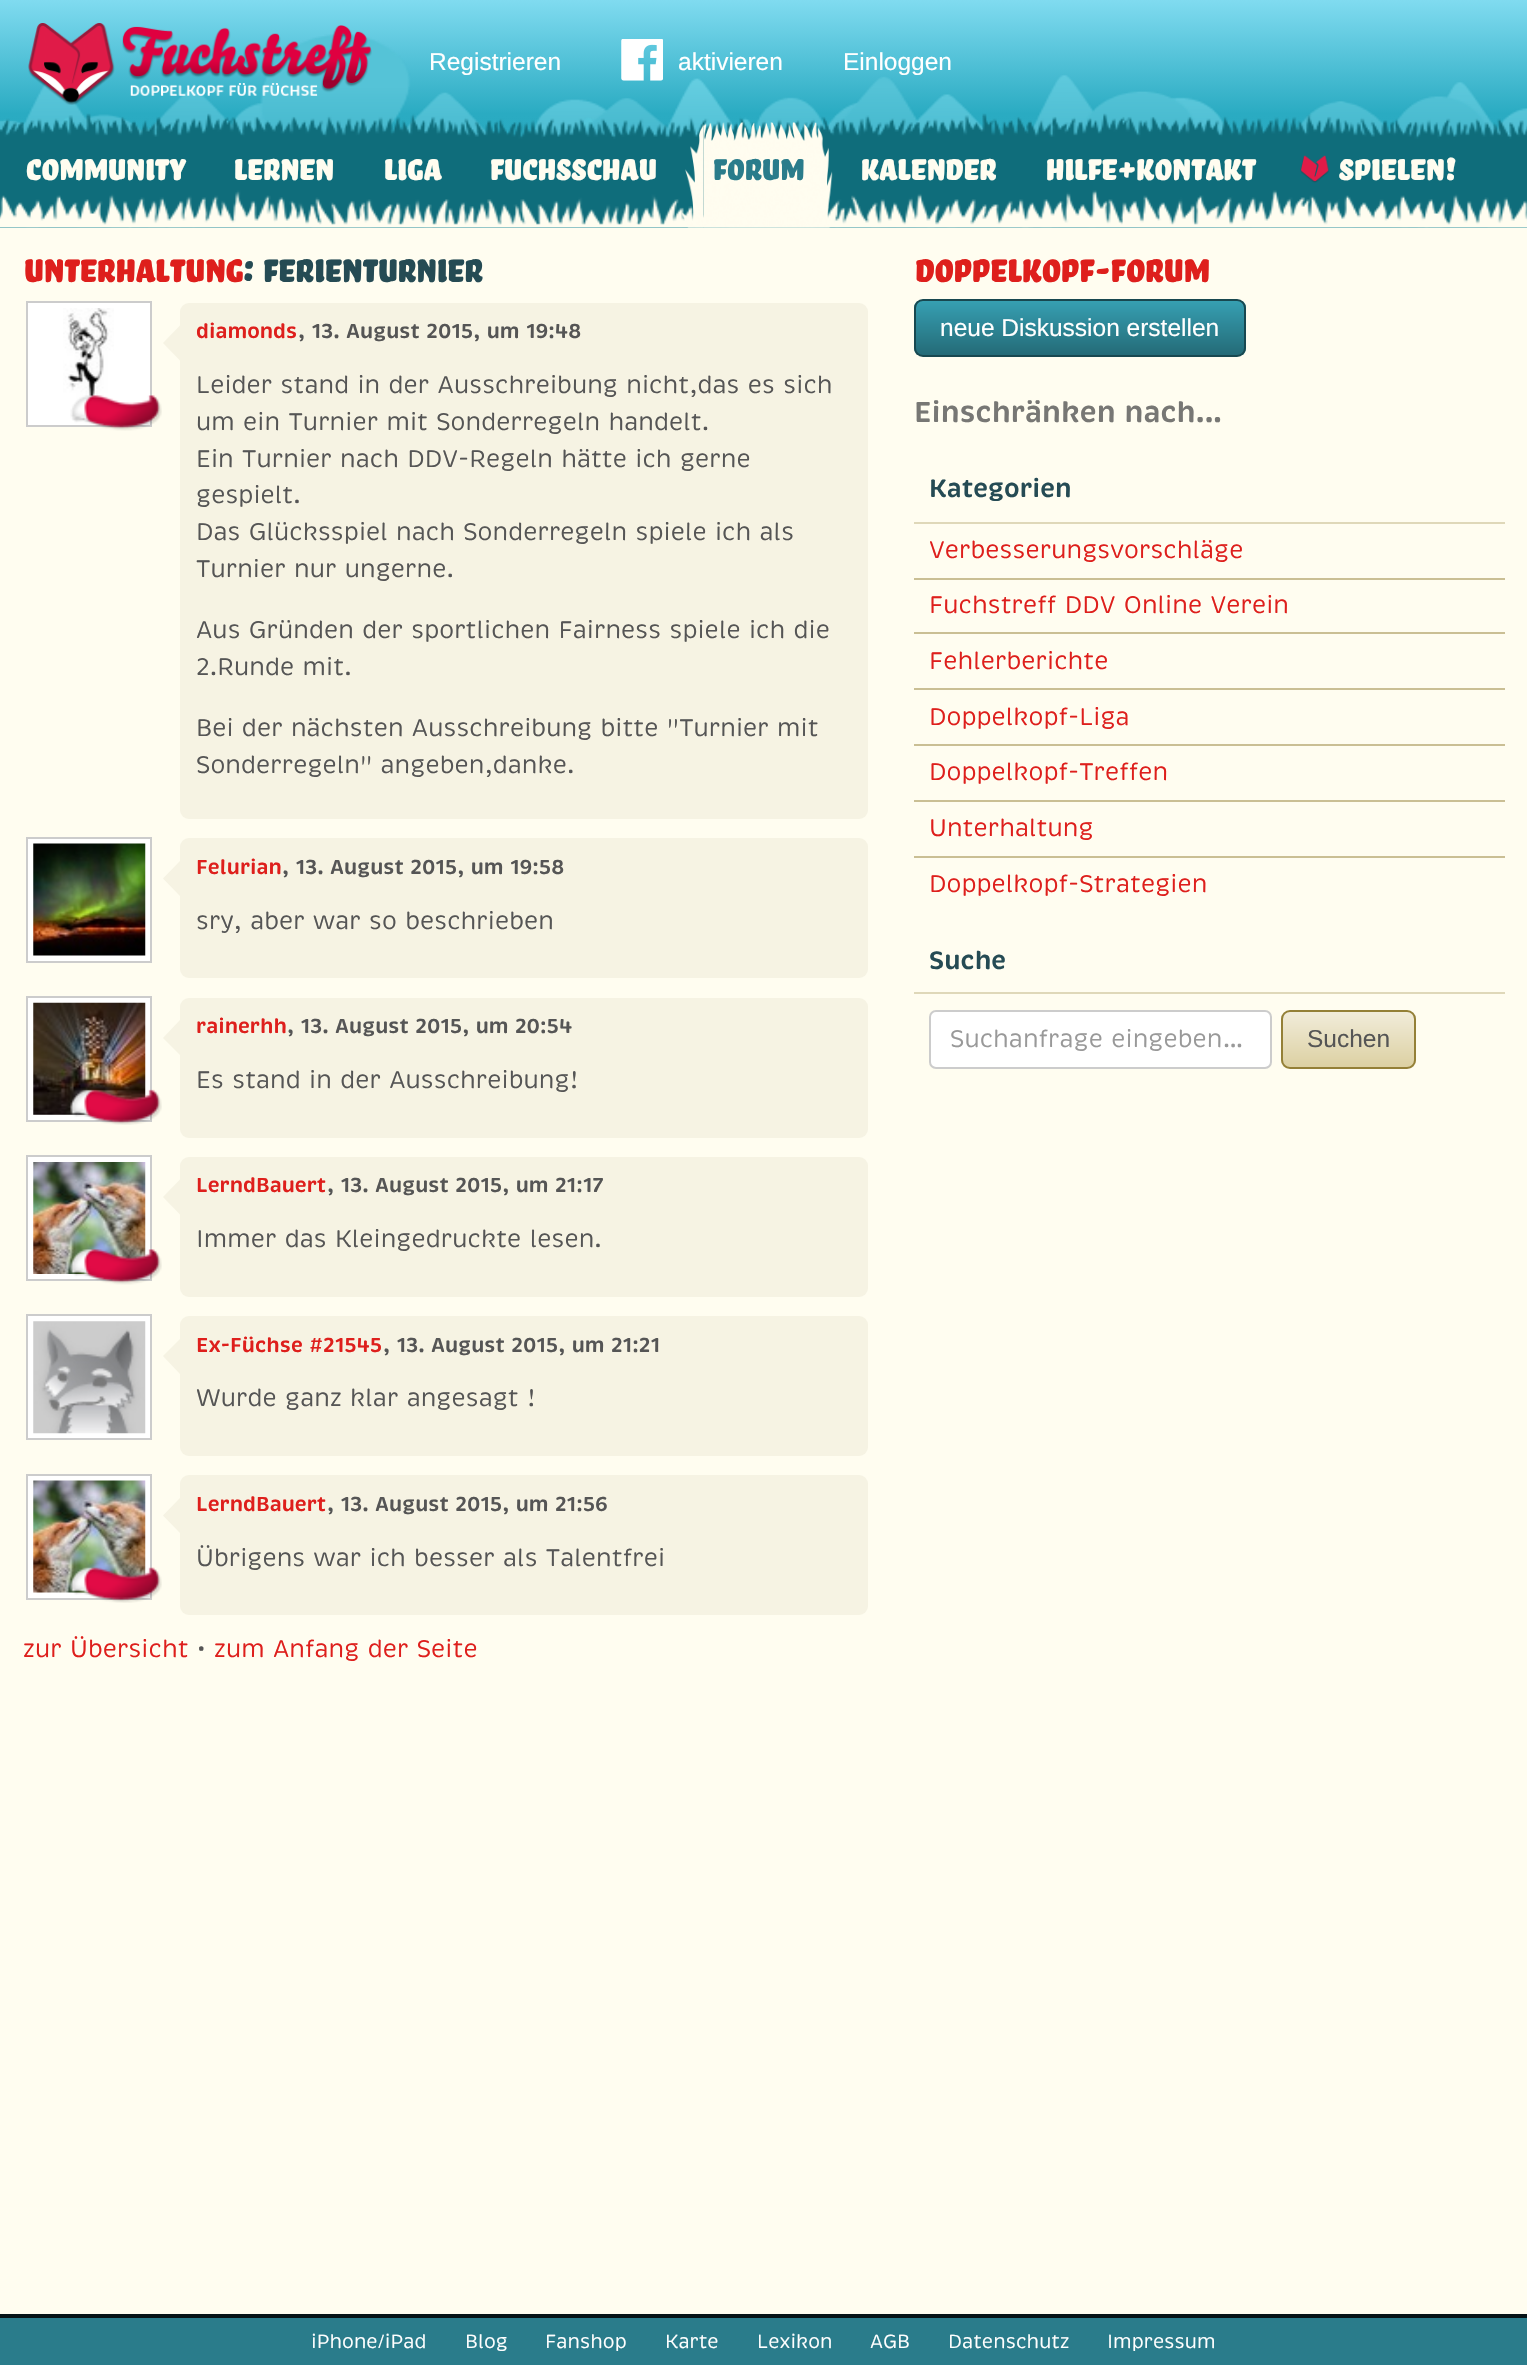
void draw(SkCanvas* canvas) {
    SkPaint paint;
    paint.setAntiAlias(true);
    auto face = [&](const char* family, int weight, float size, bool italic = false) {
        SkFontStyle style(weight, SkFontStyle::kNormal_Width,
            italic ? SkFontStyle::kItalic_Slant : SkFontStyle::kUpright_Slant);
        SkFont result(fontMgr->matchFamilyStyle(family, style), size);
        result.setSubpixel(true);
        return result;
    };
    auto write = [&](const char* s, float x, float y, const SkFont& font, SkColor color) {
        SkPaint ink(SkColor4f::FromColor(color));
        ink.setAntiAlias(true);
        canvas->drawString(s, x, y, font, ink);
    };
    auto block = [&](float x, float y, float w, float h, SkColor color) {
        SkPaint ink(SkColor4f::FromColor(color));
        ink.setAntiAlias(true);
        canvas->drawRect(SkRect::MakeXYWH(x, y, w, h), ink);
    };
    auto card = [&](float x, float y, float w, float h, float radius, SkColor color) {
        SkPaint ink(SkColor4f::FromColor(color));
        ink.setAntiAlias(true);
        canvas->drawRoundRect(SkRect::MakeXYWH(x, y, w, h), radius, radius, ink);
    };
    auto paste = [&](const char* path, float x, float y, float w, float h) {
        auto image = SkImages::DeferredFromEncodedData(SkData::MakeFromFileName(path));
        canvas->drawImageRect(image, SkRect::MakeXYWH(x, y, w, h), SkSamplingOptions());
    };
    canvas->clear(SkColorSetRGB(255, 253, 240));
    paste("pic1.png", 0, 0, 1527, 228);
    paste("pic2.png", 28, 23, 344, 82);
    auto kFont1 = face("Liberation Sans", 400, 24.5f);
    write("Registrieren", 429, 70, kFont1, SK_ColorWHITE);
    paste("pic3.png", 621, 39, 42, 42);
    write("aktivieren", 678, 70, kFont1, SK_ColorWHITE);
    write("Einloggen", 843, 70, kFont1, SK_ColorWHITE);
    paste("pic7.png", 0, 113, 1527, 115);
    auto kFont2 = face("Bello", 400, 38.5f);
    write("Community", 25, 180, kFont2, SkColorSetRGB(255, 253, 240));
    write("Lernen", 233, 180, kFont2, SkColorSetRGB(255, 253, 240));
    write("Liga", 383, 180, kFont2, SkColorSetRGB(255, 253, 240));
    write("Fuchsschau", 489, 180, kFont2, SkColorSetRGB(255, 253, 240));
    paste("pic8.png", 0, 190, 1527, 38);
    paste("pic4.png", 681, 124, 23, 104);
    paste("pic5.png", 703, 122, 130, 106);
    write("Forum", 712, 180, kFont2, SkColorSetRGB(42, 124, 139));
    write("Kalender", 860, 180, kFont2, SkColorSetRGB(255, 253, 240));
    write("Hilfe+Kontakt", 1045, 180, kFont2, SkColorSetRGB(255, 253, 240));
    paste("pic6.png", 1300, 155, 29, 28);
    write("Spielen!", 1338, 180, kFont2, SkColorSetRGB(255, 253, 240));
    auto kFont3 = face("Bello", 400, 41.75f);
    write("Unterhaltung", 23, 282, kFont3, SkColorSetRGB(222, 31, 28));
    write(": Ferienturnier", 242, 282, kFont3, SkColorSetRGB(37, 75, 84));
    paint.setColor(SK_ColorWHITE);
    canvas->drawRect(SkRect::MakeXYWH(27, 302, 124, 124), paint);
    paint.setStyle(SkPaint::kStroke_Style);
    paint.setStrokeWidth(2);
    paint.setColor(SkColorSetRGB(204, 204, 204));
    canvas->drawRect(SkRect::MakeXYWH(27, 302, 124, 124), paint);
    paste("pic9.png", 63, 308, 51, 112);
    paste("pic10.png", 70, 395, 92, 36);
    card(180, 303, 688, 516, 9, SkColorSetRGB(246, 243, 227));
    paint.setStyle(SkPaint::kFill_Style);
    paint.setColor(SkColorSetRGB(246, 243, 227));
    canvas->drawPath(SkPathBuilder().moveTo(180, 325.5f).lineTo(180, 360.5f).lineTo(163, 343).close().detach(), paint);
    auto kFont4 = face("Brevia", 600, 20.75f);
    write("diamonds", 196, 338, kFont4, SkColorSetRGB(222, 31, 28));
    write(", 13. August 2015, um 19:48", 298, 338, kFont4, SkColorSetRGB(85, 85, 85));
    auto kFont5 = face("Brevia", 400, 24.5f);
    write("Leider stand in der Ausschreibung nicht,das es sich", 196, 393, kFont5, SkColorSetRGB(85, 85, 85));
    write("um ein Turnier mit Sonderregeln handelt.", 196, 430, kFont5, SkColorSetRGB(85, 85, 85));
    write("Ein Turnier nach DDV-Regeln hätte ich gerne", 196, 467, kFont5, SkColorSetRGB(85, 85, 85));
    write("gespielt.", 196, 503, kFont5, SkColorSetRGB(85, 85, 85));
    write("Das Glücksspiel nach Sonderregeln spiele ich als", 196, 540, kFont5, SkColorSetRGB(85, 85, 85));
    write("Turnier nur ungerne.", 196, 577, kFont5, SkColorSetRGB(85, 85, 85));
    write("Aus Gründen der sportlichen Fairness spiele ich die", 196, 638, kFont5, SkColorSetRGB(85, 85, 85));
    write("2.Runde mit.", 196, 675, kFont5, SkColorSetRGB(85, 85, 85));
    write("Bei der nächsten Ausschreibung bitte \"Turnier mit", 196, 736, kFont5, SkColorSetRGB(85, 85, 85));
    write("Sonderregeln\" angeben,danke.", 196, 773, kFont5, SkColorSetRGB(85, 85, 85));
    paint.setColor(SK_ColorWHITE);
    canvas->drawRect(SkRect::MakeXYWH(27, 838, 124, 124), paint);
    paint.setStyle(SkPaint::kStroke_Style);
    paint.setColor(SkColorSetRGB(204, 204, 204));
    canvas->drawRect(SkRect::MakeXYWH(27, 838, 124, 124), paint);
    paste("pic11.png", 33, 843, 113, 113);
    card(180, 838, 688, 140, 9, SkColorSetRGB(246, 243, 227));
    paint.setStyle(SkPaint::kFill_Style);
    paint.setColor(SkColorSetRGB(246, 243, 227));
    canvas->drawPath(SkPathBuilder().moveTo(180, 861).lineTo(180, 896).lineTo(163, 878.5f).close().detach(), paint);
    write("Felurian", 196, 874, kFont4, SkColorSetRGB(222, 31, 28));
    write(", 13. August 2015, um 19:58", 282, 874, kFont4, SkColorSetRGB(85, 85, 85));
    write("sry, aber war so beschrieben", 196, 929, kFont5, SkColorSetRGB(85, 85, 85));
    paint.setColor(SK_ColorWHITE);
    canvas->drawRect(SkRect::MakeXYWH(27, 997, 124, 124), paint);
    paint.setStyle(SkPaint::kStroke_Style);
    paint.setColor(SkColorSetRGB(204, 204, 204));
    canvas->drawRect(SkRect::MakeXYWH(27, 997, 124, 124), paint);
    paste("pic12.png", 33, 1002, 113, 113);
    paste("pic13.png", 70, 1089, 92, 36);
    card(180, 998, 688, 140, 9, SkColorSetRGB(246, 243, 227));
    paint.setStyle(SkPaint::kFill_Style);
    paint.setColor(SkColorSetRGB(246, 243, 227));
    canvas->drawPath(SkPathBuilder().moveTo(180, 1020).lineTo(180, 1055).lineTo(163, 1038).close().detach(), paint);
    write("rainerhh", 196, 1033, kFont4, SkColorSetRGB(222, 31, 28));
    write(", 13. August 2015, um 20:54", 287, 1033, kFont4, SkColorSetRGB(85, 85, 85));
    write("Es stand in der Ausschreibung!", 196, 1088, kFont5, SkColorSetRGB(85, 85, 85));
    paint.setColor(SK_ColorWHITE);
    canvas->drawRect(SkRect::MakeXYWH(27, 1156, 124, 124), paint);
    paint.setStyle(SkPaint::kStroke_Style);
    paint.setColor(SkColorSetRGB(204, 204, 204));
    canvas->drawRect(SkRect::MakeXYWH(27, 1156, 124, 124), paint);
    paste("pic14.png", 33, 1162, 113, 112);
    paste("pic15.png", 70, 1249, 92, 36);
    card(180, 1157, 688, 140, 9, SkColorSetRGB(246, 243, 227));
    paint.setStyle(SkPaint::kFill_Style);
    paint.setColor(SkColorSetRGB(246, 243, 227));
    canvas->drawPath(SkPathBuilder().moveTo(180, 1179.5f).lineTo(180, 1214.5f).lineTo(163, 1197).close().detach(), paint);
    write("LerndBauert", 196, 1192, kFont4, SkColorSetRGB(222, 31, 28));
    write(", 13. August 2015, um 21:17", 327, 1192, kFont4, SkColorSetRGB(85, 85, 85));
    write("Immer das Kleingedruckte lesen.", 196, 1247, kFont5, SkColorSetRGB(85, 85, 85));
    paint.setColor(SK_ColorWHITE);
    canvas->drawRect(SkRect::MakeXYWH(27, 1315, 124, 124), paint);
    paint.setStyle(SkPaint::kStroke_Style);
    paint.setColor(SkColorSetRGB(204, 204, 204));
    canvas->drawRect(SkRect::MakeXYWH(27, 1315, 124, 124), paint);
    paste("pic16.png", 33, 1321, 113, 113);
    card(180, 1316, 688, 140, 9, SkColorSetRGB(246, 243, 227));
    paint.setStyle(SkPaint::kFill_Style);
    paint.setColor(SkColorSetRGB(246, 243, 227));
    canvas->drawPath(SkPathBuilder().moveTo(180, 1339).lineTo(180, 1374).lineTo(163, 1356).close().detach(), paint);
    write("Ex-Füchse #21545", 196, 1352, kFont4, SkColorSetRGB(222, 31, 28));
    write(", 13. August 2015, um 21:21", 383, 1352, kFont4, SkColorSetRGB(85, 85, 85));
    write("Wurde ganz klar angesagt !", 196, 1406, kFont5, SkColorSetRGB(85, 85, 85));
    paint.setColor(SK_ColorWHITE);
    canvas->drawRect(SkRect::MakeXYWH(27, 1475, 124, 124), paint);
    paint.setStyle(SkPaint::kStroke_Style);
    paint.setColor(SkColorSetRGB(204, 204, 204));
    canvas->drawRect(SkRect::MakeXYWH(27, 1475, 124, 124), paint);
    paste("pic17.png", 33, 1480, 113, 113);
    paste("pic18.png", 70, 1567, 92, 36);
    card(180, 1475, 688, 140, 9, SkColorSetRGB(246, 243, 227));
    paint.setStyle(SkPaint::kFill_Style);
    paint.setColor(SkColorSetRGB(246, 243, 227));
    canvas->drawPath(SkPathBuilder().moveTo(180, 1498).lineTo(180, 1533).lineTo(163, 1515.5f).close().detach(), paint);
    write("LerndBauert", 196, 1511, kFont4, SkColorSetRGB(222, 31, 28));
    write(", 13. August 2015, um 21:56", 327, 1511, kFont4, SkColorSetRGB(85, 85, 85));
    write("Übrigens war ich besser als Talentfrei", 196, 1566, kFont5, SkColorSetRGB(85, 85, 85));
    write("zur Übersicht", 23, 1657, kFont5, SkColorSetRGB(222, 31, 28));
    write("•", 197, 1657, kFont5, SkColorSetRGB(85, 85, 85));
    write("zum Anfang der Seite", 214, 1657, kFont5, SkColorSetRGB(222, 31, 28));
    write("Doppelkopf-Forum", 914, 282, kFont3, SkColorSetRGB(222, 31, 28));
    canvas->save();
    canvas->clipPath(SkPathBuilder().moveTo(923, 299).lineTo(1237, 299).cubicTo(1242, 299, 1246, 303, 1246, 308).lineTo(1246, 348).cubicTo(1246, 353, 1242, 357, 1237, 357).lineTo(923, 357).cubicTo(918, 357, 914, 353, 914, 348).lineTo(914, 308).cubicTo(914, 303, 918, 299, 923, 299).close().detach(), true);
    {
        const SkColor colors[] = {SkColorSetRGB(54, 159, 178), SkColorSetRGB(36, 107, 119)};
        const float stops[] = {0, 1};
        const SkPoint ends[] = {{1080, 301}, {1080, 355}};
        paint.setShader(SkGradientShader::MakeLinear(ends, colors, stops, 2, SkTileMode::kClamp));
        paint.setAlpha(255);
    }
    canvas->drawRect(SkRect::MakeXYWH(914, 301, 332, 54), paint);
    canvas->restore();
    paint.setStyle(SkPaint::kStroke_Style);
    paint.setShader(nullptr);
    paint.setColor(SkColorSetRGB(24, 72, 80));
    canvas->drawRoundRect(SkRect::MakeXYWH(915, 300, 330, 56), 8, 8, paint);
    write("neue Diskussion erstellen", 940, 336, kFont1, SK_ColorWHITE);
    auto kFont6 = face("Brevia", 600, 29.4f);
    write("Einschränken nach…", 914, 422, kFont6, SkColorSetRGB(119, 119, 116));
    block(914, 522, 591, 2, SkColorSetRGB(223, 216, 185));
    auto kFont7 = face("Brevia", 600, 25.75f);
    write("Kategorien", 929, 497, kFont7, SkColorSetRGB(37, 75, 84));
    block(914, 578, 591, 2, SkColorSetRGB(202, 191, 148));
    write("Verbesserungsvorschläge", 929, 558, kFont5, SkColorSetRGB(222, 31, 28));
    block(914, 632, 591, 2, SkColorSetRGB(202, 191, 148));
    write("Fuchstreff DDV Online Verein", 929, 613, kFont5, SkColorSetRGB(222, 31, 28));
    block(914, 688, 591, 2, SkColorSetRGB(202, 191, 148));
    write("Fehlerberichte", 929, 669, kFont5, SkColorSetRGB(222, 31, 28));
    block(914, 744, 591, 2, SkColorSetRGB(202, 191, 148));
    write("Doppelkopf-Liga", 929, 725, kFont5, SkColorSetRGB(222, 31, 28));
    block(914, 800, 591, 2, SkColorSetRGB(202, 191, 148));
    write("Doppelkopf-Treffen", 929, 780, kFont5, SkColorSetRGB(222, 31, 28));
    block(914, 856, 591, 2, SkColorSetRGB(202, 191, 148));
    write("Unterhaltung", 929, 836, kFont5, SkColorSetRGB(222, 31, 28));
    write("Doppelkopf-Strategien", 929, 892, kFont5, SkColorSetRGB(222, 31, 28));
    block(914, 992, 591, 2, SkColorSetRGB(223, 216, 185));
    write("Suche", 929, 969, kFont7, SkColorSetRGB(37, 75, 84));
    paint.setStyle(SkPaint::kFill_Style);
    paint.setColor(SK_ColorWHITE);
    canvas->drawRoundRect(SkRect::MakeXYWH(930, 1011, 341, 57), 6, 6, paint);
    paint.setStyle(SkPaint::kStroke_Style);
    paint.setColor(SkColorSetRGB(204, 204, 204));
    canvas->drawRoundRect(SkRect::MakeXYWH(930, 1011, 341, 57), 6, 6, paint);
    write("Suchanfrage eingeben…", 950, 1047, kFont5, SkColorSetRGB(153, 153, 153));
    canvas->save();
    canvas->clipPath(SkPathBuilder().moveTo(1290, 1010).lineTo(1407, 1010).cubicTo(1412, 1010, 1416, 1014, 1416, 1019).lineTo(1416, 1060).cubicTo(1416, 1065, 1412, 1069, 1407, 1069).lineTo(1290, 1069).cubicTo(1285, 1069, 1281, 1065, 1281, 1060).lineTo(1281, 1019).cubicTo(1281, 1014, 1285, 1010, 1290, 1010).close().detach(), true);
    paint.setStyle(SkPaint::kFill_Style);
    {
        const SkColor colors[] = {SkColorSetRGB(241, 236, 217), SkColorSetRGB(220, 208, 161)};
        const float stops[] = {0, 1};
        const SkPoint ends[] = {{1348, 1012}, {1348, 1068}};
        paint.setShader(SkGradientShader::MakeLinear(ends, colors, stops, 2, SkTileMode::kClamp));
        paint.setAlpha(255);
    }
    canvas->drawRect(SkRect::MakeXYWH(1281, 1012, 135, 56), paint);
    canvas->restore();
    paint.setStyle(SkPaint::kStroke_Style);
    paint.setShader(nullptr);
    paint.setColor(SkColorSetRGB(148, 128, 55));
    canvas->drawRoundRect(SkRect::MakeXYWH(1282, 1011, 133, 57), 8, 8, paint);
    write("Suchen", 1307, 1047, kFont1, SkColorSetRGB(85, 85, 85));
    block(0, 2318, 1527, 47, SkColorSetRGB(42, 124, 139));
    block(0, 2314, 1527, 4, SkColorSetRGB(6, 19, 22));
    auto kFont8 = face("Brevia", 400, 19.5f);
    write("iPhone/iPad", 311, 2348, kFont8, SK_ColorWHITE);
    write("Blog", 465, 2348, kFont8, SK_ColorWHITE);
    write("Fanshop", 545, 2348, kFont8, SK_ColorWHITE);
    write("Karte", 665, 2348, kFont8, SK_ColorWHITE);
    write("Lexikon", 757, 2348, kFont8, SK_ColorWHITE);
    write("AGB", 870, 2348, kFont8, SK_ColorWHITE);
    write("Datenschutz", 948, 2348, kFont8, SK_ColorWHITE);
    write("Impressum", 1107, 2348, kFont8, SK_ColorWHITE);
}
